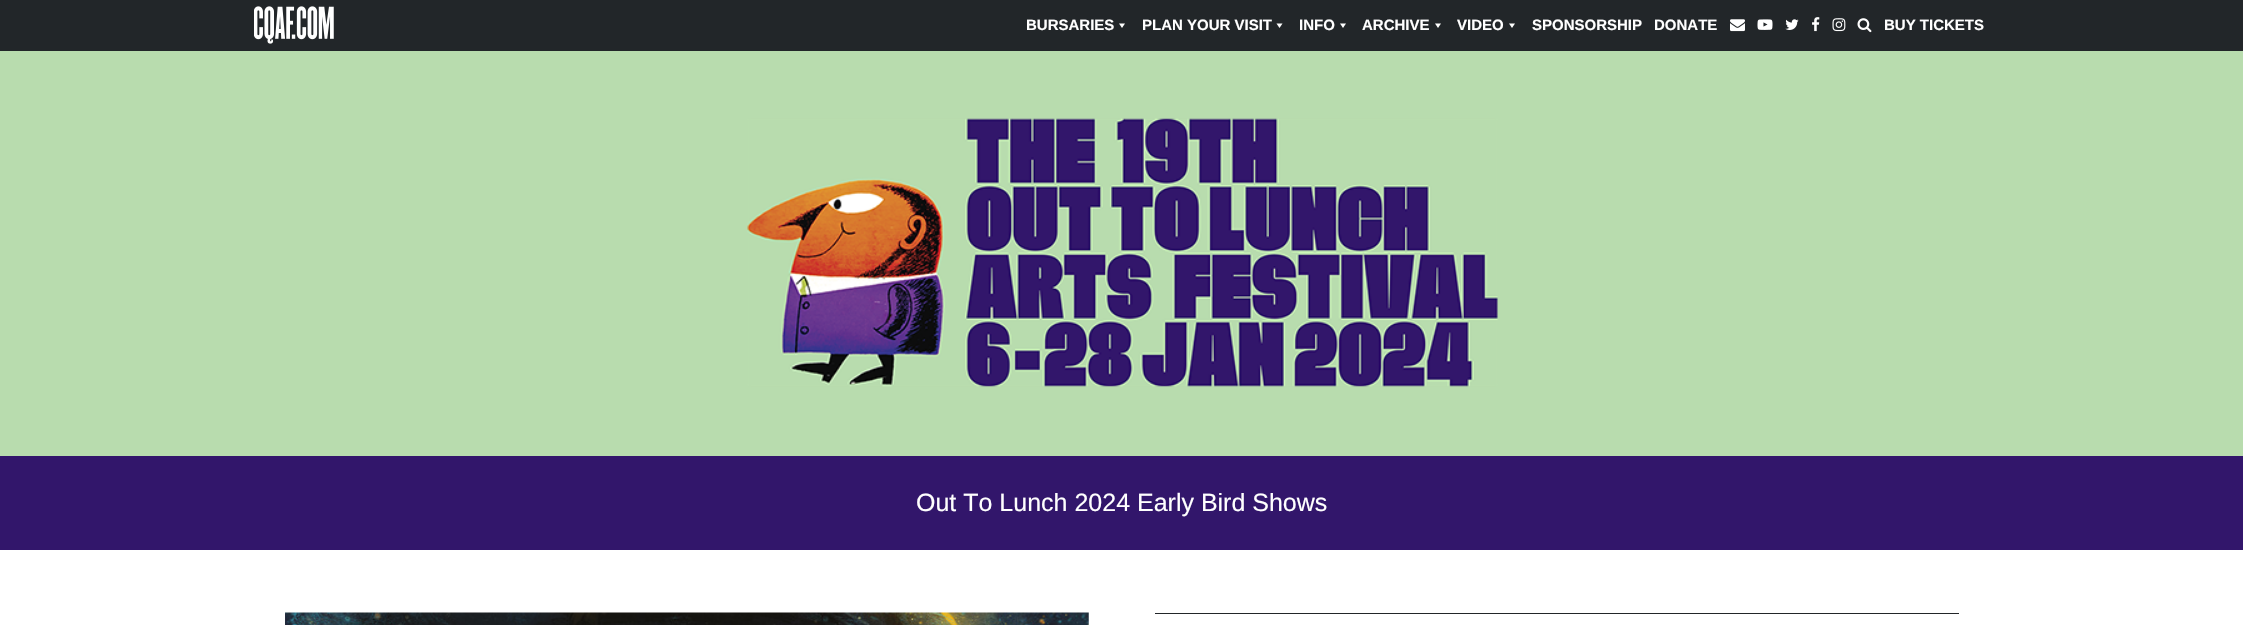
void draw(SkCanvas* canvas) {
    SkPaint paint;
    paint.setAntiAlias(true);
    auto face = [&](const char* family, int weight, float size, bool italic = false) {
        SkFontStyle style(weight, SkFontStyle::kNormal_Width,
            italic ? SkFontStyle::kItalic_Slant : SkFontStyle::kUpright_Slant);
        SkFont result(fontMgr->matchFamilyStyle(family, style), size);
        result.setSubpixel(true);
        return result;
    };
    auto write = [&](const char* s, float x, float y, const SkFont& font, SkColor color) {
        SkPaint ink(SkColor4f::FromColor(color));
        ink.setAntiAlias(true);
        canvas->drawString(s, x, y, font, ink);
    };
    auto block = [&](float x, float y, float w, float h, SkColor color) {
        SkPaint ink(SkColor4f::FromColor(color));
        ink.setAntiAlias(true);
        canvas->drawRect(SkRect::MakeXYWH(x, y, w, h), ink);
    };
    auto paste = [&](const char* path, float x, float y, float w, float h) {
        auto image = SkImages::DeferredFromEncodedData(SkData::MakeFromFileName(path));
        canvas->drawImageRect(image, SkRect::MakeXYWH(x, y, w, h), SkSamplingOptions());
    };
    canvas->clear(SK_ColorWHITE);
    block(0, 0, 2243, 51, SkColorSetRGB(34, 38, 41));
    paste("pic1.png", 254, 6, 80, 38);
    auto kFont1 = face("Liberation Sans", 700, 15);
    write("BURSARIES", 1026, 30, kFont1, SK_ColorWHITE);
    paint.setColor(SK_ColorWHITE);
    canvas->drawPath(SkPathBuilder().moveTo(1125, 23.5f).lineTo(1122, 28).lineTo(1119, 23.5f).close().detach(), paint);
    write("PLAN YOUR VISIT", 1142, 30, kFont1, SK_ColorWHITE);
    canvas->drawPath(SkPathBuilder().moveTo(1282.5f, 23.5f).lineTo(1279.5f, 28).lineTo(1276.5f, 23.5f).close().detach(), paint);
    write("INFO", 1299, 30, kFont1, SK_ColorWHITE);
    canvas->drawPath(SkPathBuilder().moveTo(1346, 23.5f).lineTo(1343, 28).lineTo(1340, 23.5f).close().detach(), paint);
    write("ARCHIVE", 1362, 30, kFont1, SK_ColorWHITE);
    canvas->drawPath(SkPathBuilder().moveTo(1441, 23.5f).lineTo(1438, 28).lineTo(1435, 23.5f).close().detach(), paint);
    write("VIDEO", 1457, 30, kFont1, SK_ColorWHITE);
    canvas->drawPath(SkPathBuilder().moveTo(1515, 23.5f).lineTo(1512, 28).lineTo(1509, 23.5f).close().detach(), paint);
    write("SPONSORSHIP", 1532, 30, kFont1, SK_ColorWHITE);
    write("DONATE", 1654, 30, kFont1, SK_ColorWHITE);
    paste("pic2.png", 1730, 19, 15, 13);
    paste("pic3.png", 1757, 19, 16, 11);
    paste("pic4.png", 1785, 19, 14, 11);
    paste("pic5.png", 1812, 17, 8, 15);
    paste("pic6.png", 1832, 18, 14, 14);
    paste("pic7.png", 1857, 18, 15, 15);
    write("BUY TICKETS", 1884, 30, kFont1, SK_ColorWHITE);
    block(0, 51, 2243, 405, SkColorSetRGB(184, 220, 174));
    paste("pic8.png", 747, 118, 751, 269);
    block(0, 456, 2243, 94, SkColorSetRGB(50, 22, 107));
    auto kFont2 = face("Liberation Sans", 400, 25);
    write("Out To Lunch 2024 Early Bird Shows", 916, 511, kFont2, SK_ColorWHITE);
    paste("pic9.png", 285, 612, 804, 13);
    block(1155, 613, 804, 1, SkColorSetRGB(34, 38, 41));
}
